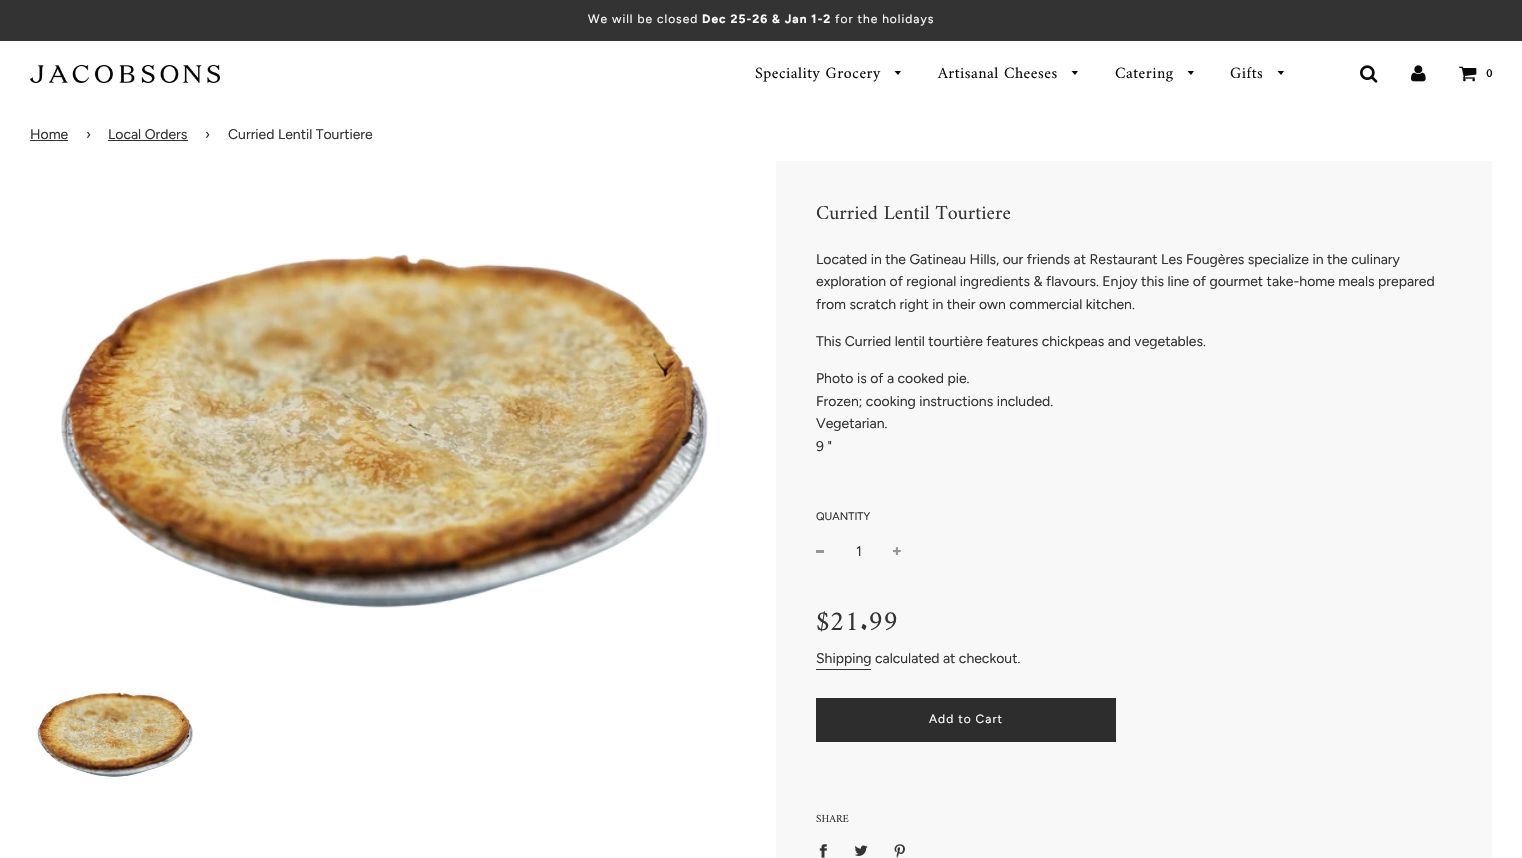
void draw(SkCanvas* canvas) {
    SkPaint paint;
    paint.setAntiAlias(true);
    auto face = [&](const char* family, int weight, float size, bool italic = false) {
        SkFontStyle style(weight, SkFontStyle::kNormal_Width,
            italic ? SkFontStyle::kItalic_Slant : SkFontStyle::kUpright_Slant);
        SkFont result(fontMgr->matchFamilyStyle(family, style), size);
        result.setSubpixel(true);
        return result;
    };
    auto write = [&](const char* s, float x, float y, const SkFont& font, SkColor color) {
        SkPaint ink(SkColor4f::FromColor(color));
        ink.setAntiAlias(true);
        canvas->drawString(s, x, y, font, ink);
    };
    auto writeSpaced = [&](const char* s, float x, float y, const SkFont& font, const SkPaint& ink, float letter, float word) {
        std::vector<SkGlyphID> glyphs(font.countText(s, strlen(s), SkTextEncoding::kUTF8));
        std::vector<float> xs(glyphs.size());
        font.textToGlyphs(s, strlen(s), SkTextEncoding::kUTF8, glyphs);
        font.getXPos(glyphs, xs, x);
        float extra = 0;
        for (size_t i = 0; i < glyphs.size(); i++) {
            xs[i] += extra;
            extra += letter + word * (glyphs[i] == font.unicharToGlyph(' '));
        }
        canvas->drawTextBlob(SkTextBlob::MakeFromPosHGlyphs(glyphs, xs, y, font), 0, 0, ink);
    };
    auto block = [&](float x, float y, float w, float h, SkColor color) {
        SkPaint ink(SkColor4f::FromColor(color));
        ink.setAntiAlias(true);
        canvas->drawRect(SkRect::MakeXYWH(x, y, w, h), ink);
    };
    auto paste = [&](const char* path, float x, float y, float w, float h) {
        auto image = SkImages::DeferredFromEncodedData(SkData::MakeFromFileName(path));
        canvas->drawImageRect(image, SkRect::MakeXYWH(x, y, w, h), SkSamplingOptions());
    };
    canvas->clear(SK_ColorWHITE);
    block(0, 0, 1522, 41, SkColorSetRGB(51, 51, 51));
    auto kFont1 = face("Figtree", 400, 12);
    paint.setColor(SK_ColorWHITE);
    writeSpaced("We will be closed", 588, 23, kFont1, paint, 1, 0);
    auto kFont2 = face("Figtree", 700, 12);
    writeSpaced("Dec 25-26 & Jan 1-2", 702, 23, kFont2, paint, 1, 0);
    writeSpaced("for the holidays", 835, 23, kFont1, paint, 1, 0);
    paste("pic1.png", 30, 65, 190, 18);
    auto kFont3 = face("Amiri", 400, 16);
    paint.setColor(SkColorSetRGB(10, 10, 10));
    writeSpaced("Speciality Grocery", 755, 78, kFont3, paint, 0.5f, 0);
    canvas->drawPath(SkPathBuilder().moveTo(894.5f, 71).lineTo(898, 75).lineTo(901, 71).close().detach(), paint);
    writeSpaced("Artisanal Cheeses", 938, 78, kFont3, paint, 0.5f, 0);
    canvas->drawPath(SkPathBuilder().moveTo(1071.5f, 71).lineTo(1075, 75).lineTo(1078, 71).close().detach(), paint);
    writeSpaced("Catering", 1115, 78, kFont3, paint, 0.5f, 0);
    canvas->drawPath(SkPathBuilder().moveTo(1187.5f, 71).lineTo(1191, 75).lineTo(1194, 71).close().detach(), paint);
    writeSpaced("Gifts", 1230, 78, kFont3, paint, 0.5f, 0);
    canvas->drawPath(SkPathBuilder().moveTo(1277.5f, 71).lineTo(1281, 75).lineTo(1284, 71).close().detach(), paint);
    paste("pic2.png", 1360, 65, 18, 18);
    paste("pic3.png", 1411, 65, 15, 17);
    paste("pic4.png", 1459, 66, 18, 16);
    auto kFont4 = face("Amiri", 700, 12);
    write("0", 1486, 77, kFont4, SkColorSetRGB(10, 10, 10));
    auto kFont5 = face("Figtree", 400, 14);
    write("Home", 30, 139, kFont5, SkColorSetRGB(51, 51, 51));
    block(30, 140, 38, 1, SkColorSetRGB(51, 51, 51));
    write("›", 86, 139, kFont5, SkColorSetRGB(51, 51, 51));
    write("Local Orders", 108, 139, kFont5, SkColorSetRGB(51, 51, 51));
    block(108, 140, 80, 1, SkColorSetRGB(51, 51, 51));
    write("›", 205, 139, kFont5, SkColorSetRGB(51, 51, 51));
    write("Curried Lentil Tourtiere", 228, 139, kFont5, SkColorSetRGB(51, 51, 51));
    paste("pic5.png", 61, 254, 647, 354);
    paste("pic6.png", 37, 692, 156, 85);
    block(776, 161, 716, 697, SkColorSetRGB(248, 248, 248));
    auto kFont6 = face("Amiri", 400, 20);
    write("Curried Lentil Tourtiere", 816, 219, kFont6, SkColorSetRGB(51, 51, 51));
    write("Located in the Gatineau Hills, our friends at Restaurant Les Fougères specialize in the culinary", 816, 264, kFont5, SkColorSetRGB(51, 51, 51));
    write("exploration of regional ingredients & flavours. Enjoy this line of gourmet take-home meals prepared", 816, 286, kFont5, SkColorSetRGB(51, 51, 51));
    write("from scratch right in their own commercial kitchen.", 816, 309, kFont5, SkColorSetRGB(51, 51, 51));
    write("This Curried lentil tourtière features chickpeas and vegetables.", 816, 346, kFont5, SkColorSetRGB(51, 51, 51));
    write("Photo is of a cooked pie.", 816, 383, kFont5, SkColorSetRGB(51, 51, 51));
    write("Frozen; cooking instructions included.", 816, 406, kFont5, SkColorSetRGB(51, 51, 51));
    write("Vegetarian.", 816, 428, kFont5, SkColorSetRGB(51, 51, 51));
    write("9 \"", 816, 451, kFont5, SkColorSetRGB(51, 51, 51));
    auto kFont7 = face("Figtree", 400, 11);
    write("QUANTITY", 816, 520, kFont7, SkColorSetRGB(51, 51, 51));
    block(816, 550, 8, 3, SkColorSetRGB(150, 150, 150));
    write("1", 856, 556, kFont5, SkColorSetRGB(51, 51, 51));
    paste("pic7.png", 893, 547, 8, 8);
    auto kFont8 = face("Amiri", 400, 28);
    write("$21.99", 816, 630, kFont8, SkColorSetRGB(51, 51, 51));
    write("Shipping calculated at checkout.", 816, 663, kFont5, SkColorSetRGB(51, 51, 51));
    block(816, 669, 55, 1, SkColorSetRGB(51, 51, 51));
    block(816, 698, 300, 44, SkColorSetRGB(45, 45, 45));
    paint.setColor(SK_ColorWHITE);
    writeSpaced("Add to Cart", 929, 723, kFont1, paint, 1, 0);
    auto kFont9 = face("Amiri", 400, 11);
    write("SHARE", 816, 822, kFont9, SkColorSetRGB(51, 51, 51));
    paste("pic8.png", 819, 844, 8, 14);
    paste("pic9.png", 854, 845, 14, 11);
    paste("pic10.png", 894, 844, 11, 14);
}
